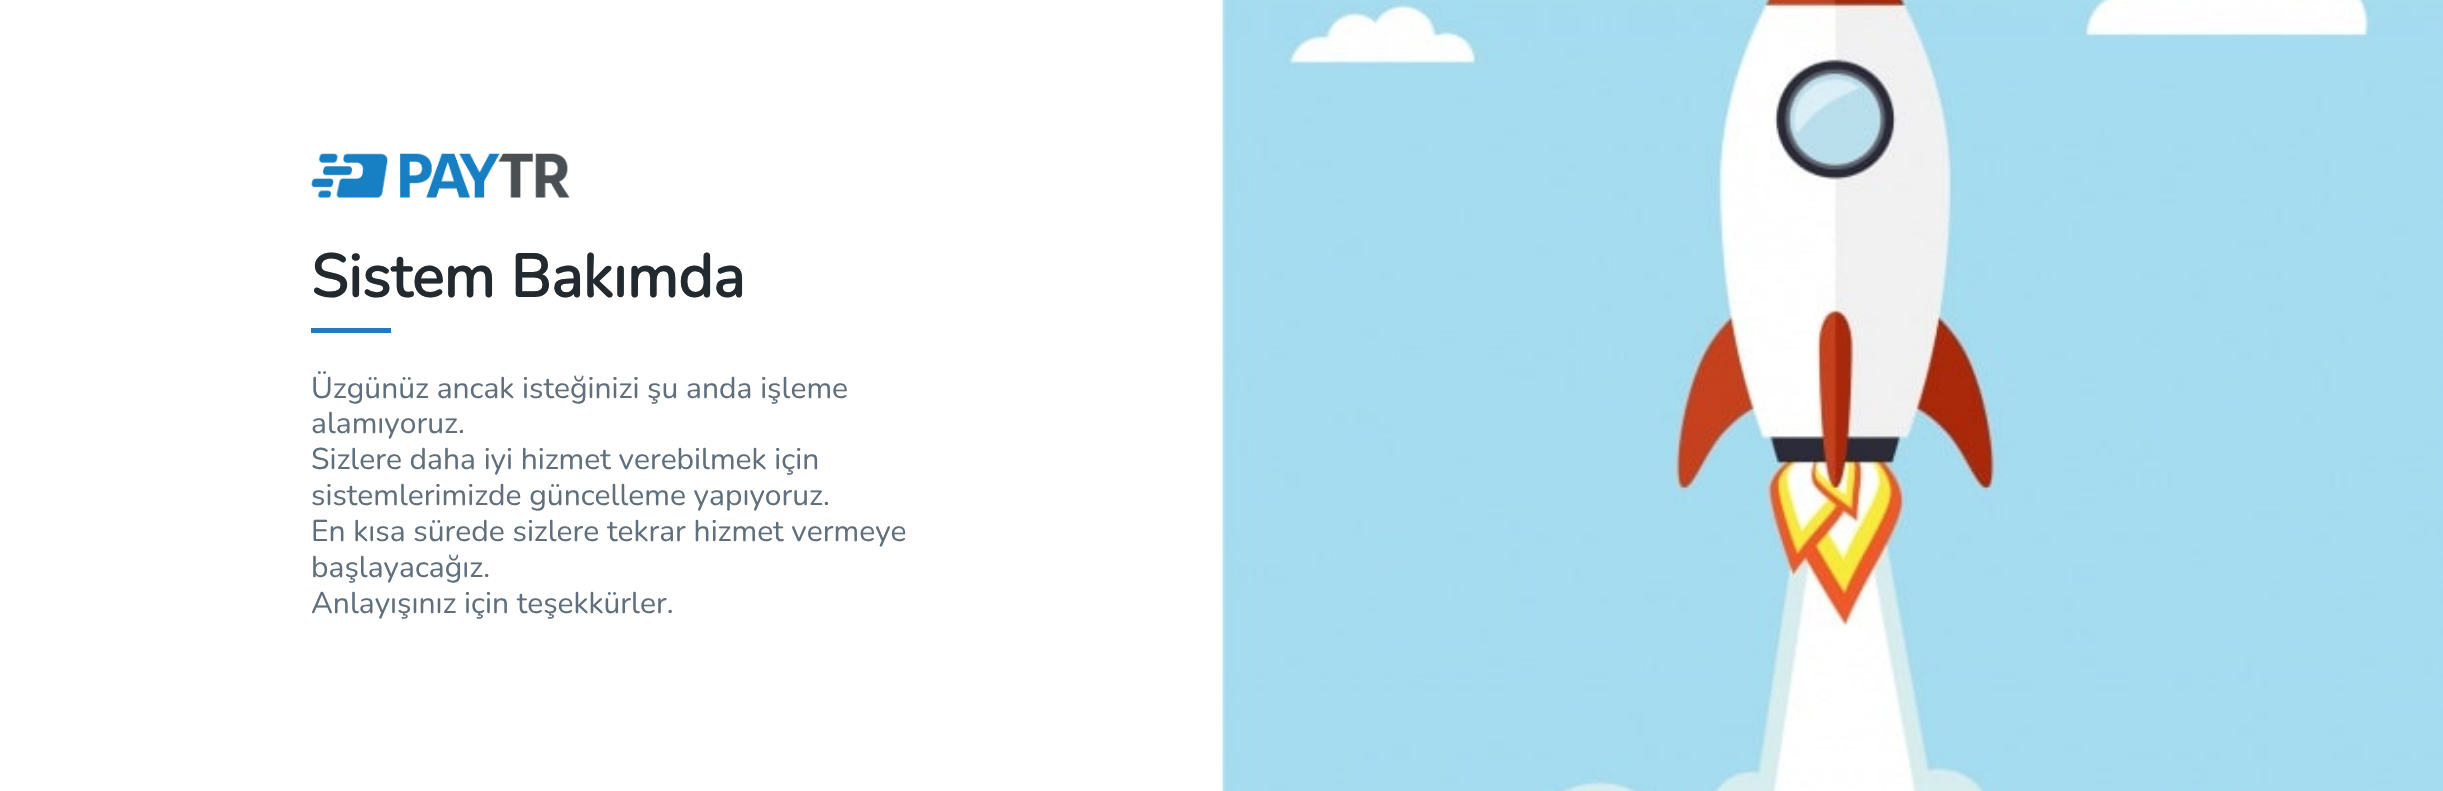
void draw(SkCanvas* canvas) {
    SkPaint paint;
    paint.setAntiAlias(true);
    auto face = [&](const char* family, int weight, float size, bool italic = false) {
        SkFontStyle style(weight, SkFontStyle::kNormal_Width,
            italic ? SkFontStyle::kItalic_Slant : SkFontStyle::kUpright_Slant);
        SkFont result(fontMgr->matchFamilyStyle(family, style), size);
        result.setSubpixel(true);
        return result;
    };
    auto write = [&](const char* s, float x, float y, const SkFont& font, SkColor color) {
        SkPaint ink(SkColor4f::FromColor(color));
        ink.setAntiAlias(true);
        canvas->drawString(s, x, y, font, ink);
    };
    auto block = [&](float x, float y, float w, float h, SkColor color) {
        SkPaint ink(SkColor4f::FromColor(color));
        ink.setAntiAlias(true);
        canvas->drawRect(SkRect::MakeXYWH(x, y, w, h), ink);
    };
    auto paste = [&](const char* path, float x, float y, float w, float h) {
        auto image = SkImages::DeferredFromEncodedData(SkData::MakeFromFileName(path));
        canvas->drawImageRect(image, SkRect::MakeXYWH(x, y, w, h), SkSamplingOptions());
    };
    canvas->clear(SK_ColorWHITE);
    paste("pic1.png", 311, 153, 259, 45);
    auto kFont1 = face("Nunito", 700, 60);
    write("Sistem Bakımda", 311, 297, kFont1, SkColorSetRGB(34, 41, 47));
    block(311, 328, 80, 5, SkColorSetRGB(39, 121, 189));
    auto kFont2 = face("Nunito", 200, 30);
    write("Üzgünüz ancak isteğinizi şu anda işleme", 311, 398, kFont2, SkColorSetRGB(96, 111, 123));
    write("alamıyoruz.", 311, 433, kFont2, SkColorSetRGB(96, 111, 123));
    write("Sizlere daha iyi hizmet verebilmek için", 311, 469, kFont2, SkColorSetRGB(96, 111, 123));
    write("sistemlerimizde güncelleme yapıyoruz.", 311, 505, kFont2, SkColorSetRGB(96, 111, 123));
    write("En kısa sürede sizlere tekrar hizmet vermeye", 311, 541, kFont2, SkColorSetRGB(96, 111, 123));
    write("başlayacağız.", 311, 577, kFont2, SkColorSetRGB(96, 111, 123));
    write("Anlayışınız için teşekkürler.", 311, 613, kFont2, SkColorSetRGB(96, 111, 123));
    paste("pic2.png", 1222, 0, 1221, 791);
}
